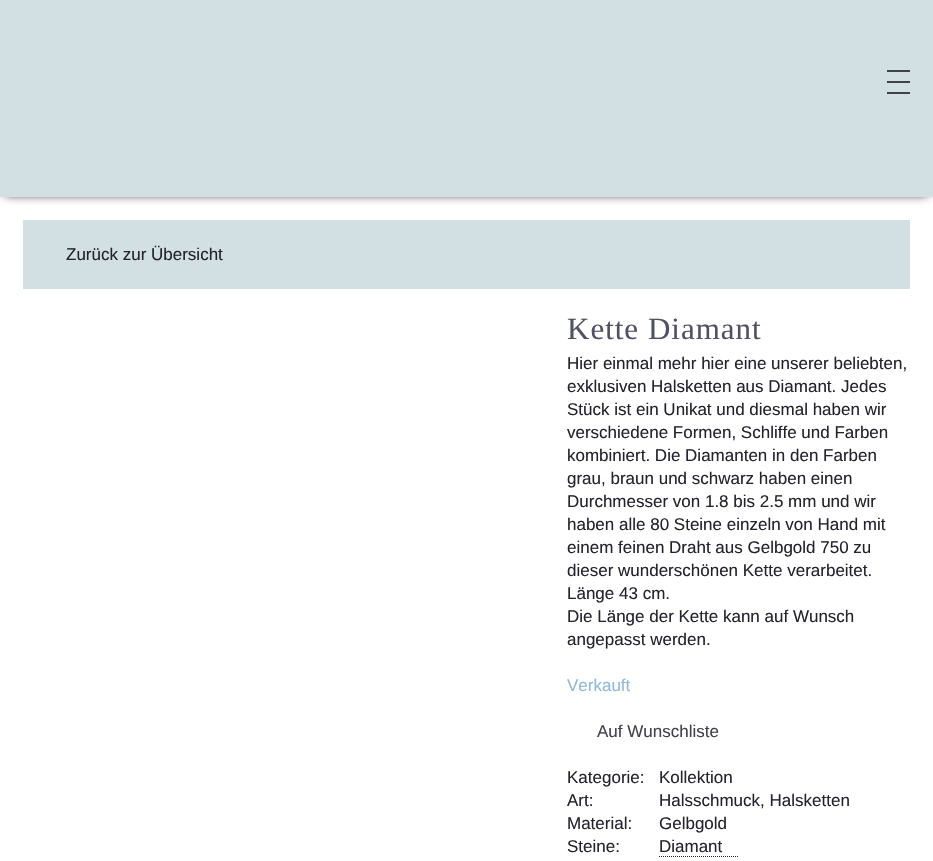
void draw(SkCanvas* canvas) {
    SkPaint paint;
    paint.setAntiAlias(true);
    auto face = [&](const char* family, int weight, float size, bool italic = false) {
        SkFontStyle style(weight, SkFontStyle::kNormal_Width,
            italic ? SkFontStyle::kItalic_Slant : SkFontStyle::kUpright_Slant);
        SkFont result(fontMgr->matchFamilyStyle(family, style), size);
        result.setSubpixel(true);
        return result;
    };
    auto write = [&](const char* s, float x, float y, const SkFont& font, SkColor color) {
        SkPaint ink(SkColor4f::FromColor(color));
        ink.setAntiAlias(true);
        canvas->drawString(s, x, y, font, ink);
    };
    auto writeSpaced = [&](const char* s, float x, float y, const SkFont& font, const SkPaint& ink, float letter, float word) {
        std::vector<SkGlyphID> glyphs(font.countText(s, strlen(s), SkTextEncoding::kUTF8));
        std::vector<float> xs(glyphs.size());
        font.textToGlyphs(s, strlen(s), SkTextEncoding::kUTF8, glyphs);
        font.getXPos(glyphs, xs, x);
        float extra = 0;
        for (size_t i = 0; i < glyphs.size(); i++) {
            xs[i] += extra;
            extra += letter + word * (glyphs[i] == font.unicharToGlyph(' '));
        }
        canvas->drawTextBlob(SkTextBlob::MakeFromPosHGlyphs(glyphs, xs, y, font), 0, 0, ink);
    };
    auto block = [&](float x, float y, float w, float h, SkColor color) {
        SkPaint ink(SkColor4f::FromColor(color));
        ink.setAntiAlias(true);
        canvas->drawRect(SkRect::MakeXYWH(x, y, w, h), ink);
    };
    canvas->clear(SK_ColorWHITE);
    paint.setColor(SK_ColorBLACK);
    paint.setMaskFilter(SkMaskFilter::MakeBlur(kNormal_SkBlurStyle, 5));
    canvas->drawRect(SkRect::MakeXYWH(5, 7, 923, 187), paint);
    paint.setMaskFilter(nullptr);
    block(0, 0, 933, 197, SkColorSetRGB(211, 224, 227));
    block(887, 81, 23, 2, SkColorSetRGB(65, 65, 75));
    block(887, 70, 23, 2, SkColorSetRGB(65, 65, 75));
    block(887, 92, 23, 2, SkColorSetRGB(65, 65, 75));
    block(23, 220, 887, 69, SkColorSetRGB(211, 224, 227));
    auto kFont1 = face("Liberation Sans", 400, 17);
    write("Zurück zur Übersicht", 66, 260, kFont1, SkColorSetRGB(35, 35, 43));
    auto kFont2 = face("Liberation Serif", 400, 31);
    paint.setColor(SkColorSetRGB(81, 81, 99));
    writeSpaced("Kette Diamant", 567, 339, kFont2, paint, 1, 0);
    write("Hier einmal mehr hier eine unserer beliebten,", 567, 369, kFont1, SkColorSetRGB(35, 35, 43));
    write("exklusiven Halsketten aus Diamant. Jedes", 567, 392, kFont1, SkColorSetRGB(35, 35, 43));
    write("Stück ist ein Unikat und diesmal haben wir", 567, 415, kFont1, SkColorSetRGB(35, 35, 43));
    write("verschiedene Formen, Schliffe und Farben", 567, 438, kFont1, SkColorSetRGB(35, 35, 43));
    write("kombiniert. Die Diamanten in den Farben", 567, 461, kFont1, SkColorSetRGB(35, 35, 43));
    write("grau, braun und schwarz haben einen", 567, 484, kFont1, SkColorSetRGB(35, 35, 43));
    write("Durchmesser von 1.8 bis 2.5 mm und wir", 567, 507, kFont1, SkColorSetRGB(35, 35, 43));
    write("haben alle 80 Steine einzeln von Hand mit", 567, 530, kFont1, SkColorSetRGB(35, 35, 43));
    write("einem feinen Draht aus Gelbgold 750 zu", 567, 553, kFont1, SkColorSetRGB(35, 35, 43));
    write("dieser wunderschönen Kette verarbeitet.", 567, 576, kFont1, SkColorSetRGB(35, 35, 43));
    write("Länge 43 cm.", 567, 599, kFont1, SkColorSetRGB(35, 35, 43));
    write("Die Länge der Kette kann auf Wunsch", 567, 622, kFont1, SkColorSetRGB(35, 35, 43));
    write("angepasst werden.", 567, 645, kFont1, SkColorSetRGB(35, 35, 43));
    write("Verkauft", 567, 691, kFont1, SkColorSetRGB(146, 184, 215));
    write("Auf Wunschliste", 597, 737, kFont1, SkColorSetRGB(65, 65, 75));
    write("Kategorie:", 567, 783, kFont1, SkColorSetRGB(35, 35, 43));
    write("Kollektion", 659, 783, kFont1, SkColorSetRGB(35, 35, 43));
    write("Art:", 567, 806, kFont1, SkColorSetRGB(35, 35, 43));
    write("Halsschmuck, Halsketten", 659, 806, kFont1, SkColorSetRGB(35, 35, 43));
    write("Material:", 567, 829, kFont1, SkColorSetRGB(35, 35, 43));
    write("Gelbgold", 659, 829, kFont1, SkColorSetRGB(35, 35, 43));
    write("Steine:", 567, 852, kFont1, SkColorSetRGB(35, 35, 43));
    write("Diamant", 659, 852, kFont1, SkColorSetRGB(35, 35, 43));
    paint.setStyle(SkPaint::kStroke_Style);
    paint.setStrokeWidth(1);
    paint.setColor(SkColorSetRGB(35, 35, 43));
    paint.setPathEffect(SkDashPathEffect::Make({{1, 1}}, 0));
    canvas->drawPath(SkPathBuilder().moveTo(659, 856.5f).lineTo(738, 856.5f).detach(), paint);
    paint.setPathEffect(nullptr);
}
